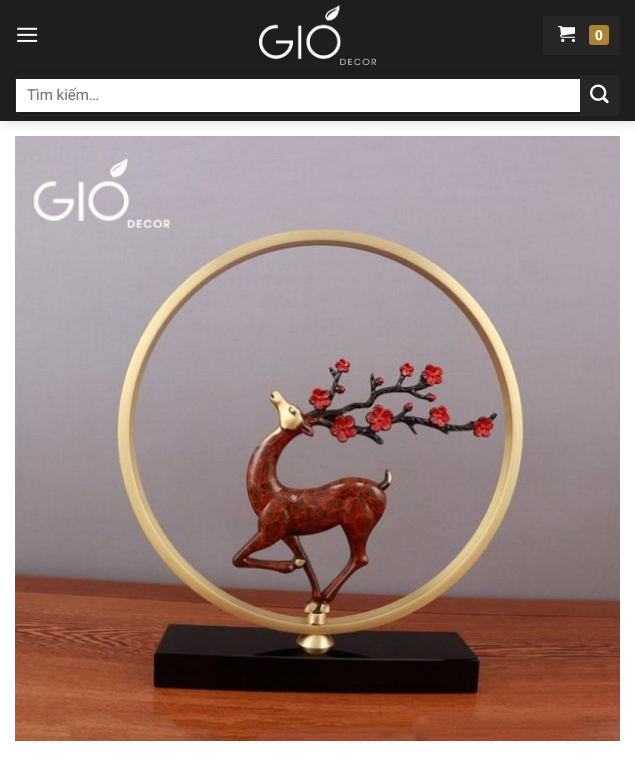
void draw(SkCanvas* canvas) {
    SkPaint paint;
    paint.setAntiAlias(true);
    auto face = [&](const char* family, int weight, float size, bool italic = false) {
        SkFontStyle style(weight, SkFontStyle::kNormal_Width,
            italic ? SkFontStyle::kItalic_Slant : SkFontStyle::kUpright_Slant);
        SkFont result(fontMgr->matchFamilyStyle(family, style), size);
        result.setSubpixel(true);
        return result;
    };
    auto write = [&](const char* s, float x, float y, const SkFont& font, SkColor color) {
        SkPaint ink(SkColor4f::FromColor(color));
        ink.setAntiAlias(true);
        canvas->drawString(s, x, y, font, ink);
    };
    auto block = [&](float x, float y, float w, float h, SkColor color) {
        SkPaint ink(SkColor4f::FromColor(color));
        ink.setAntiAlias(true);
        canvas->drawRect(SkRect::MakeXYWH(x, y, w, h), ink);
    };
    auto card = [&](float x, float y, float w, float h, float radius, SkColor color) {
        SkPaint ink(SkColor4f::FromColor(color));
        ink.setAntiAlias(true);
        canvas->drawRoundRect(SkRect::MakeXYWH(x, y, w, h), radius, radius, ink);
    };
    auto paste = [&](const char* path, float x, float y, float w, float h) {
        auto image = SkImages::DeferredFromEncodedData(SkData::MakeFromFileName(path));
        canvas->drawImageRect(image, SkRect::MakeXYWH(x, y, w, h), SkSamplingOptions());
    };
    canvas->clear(SK_ColorWHITE);
    paste("pic5.png", 15, 136, 605, 605);
    paint.setColor(SkColorSetARGB(38, 0, 0, 0));
    paint.setMaskFilter(SkMaskFilter::MakeBlur(kNormal_SkBlurStyle, 5));
    canvas->drawRect(SkRect::MakeXYWH(1, 1, 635, 121), paint);
    paint.setMaskFilter(nullptr);
    block(0, 0, 635, 121, SkColorSetRGB(30, 30, 30));
    paste("pic1.png", 17, 27, 21, 15);
    paste("pic2.png", 259, 5, 117, 60);
    card(543, 16, 77, 39, 3, SkColorSetRGB(38, 38, 38));
    paste("pic3.png", 558, 26, 17, 16);
    card(589, 25, 20, 20, 3, SkColorSetRGB(170, 131, 52));
    auto kFont1 = face("Liberation Sans", 700, 14);
    write("0", 595, 40, kFont1, SK_ColorWHITE);
    block(15, 70, 605, 1, SkColorSetRGB(27, 27, 27));
    paint.setStyle(SkPaint::kStroke_Style);
    paint.setStrokeWidth(1);
    paint.setColor(SkColorSetRGB(38, 38, 38));
    canvas->drawRoundRect(SkRect::MakeXYWH(15.5f, 75.5f, 604, 40), 4.5f, 4.5f, paint);
    block(16, 79, 564, 33, SK_ColorWHITE);
    auto kFont2 = face("Roboto", 400, 15);
    write("Tìm kiếm…", 27, 100, kFont2, SkColorSetRGB(117, 117, 117));
    canvas->save();
    canvas->clipPath(SkPathBuilder().moveTo(20, 76).lineTo(615, 76).cubicTo(617, 76, 619, 78, 619, 80).lineTo(619, 111).cubicTo(619, 113, 617, 115, 615, 115).lineTo(20, 115).cubicTo(18, 115, 16, 113, 16, 111).lineTo(16, 80).cubicTo(16, 78, 18, 76, 20, 76).close().detach(), true);
    paint.setStyle(SkPaint::kFill_Style);
    canvas->drawPath(SkPathBuilder().moveTo(580, 76).lineTo(614, 76).cubicTo(617, 76, 619, 78, 619, 81).lineTo(619, 110).cubicTo(619, 113, 617, 115, 614, 115).lineTo(580, 115).close().detach(), paint);
    canvas->restore();
    paste("pic4.png", 590, 84, 19, 20);
}
